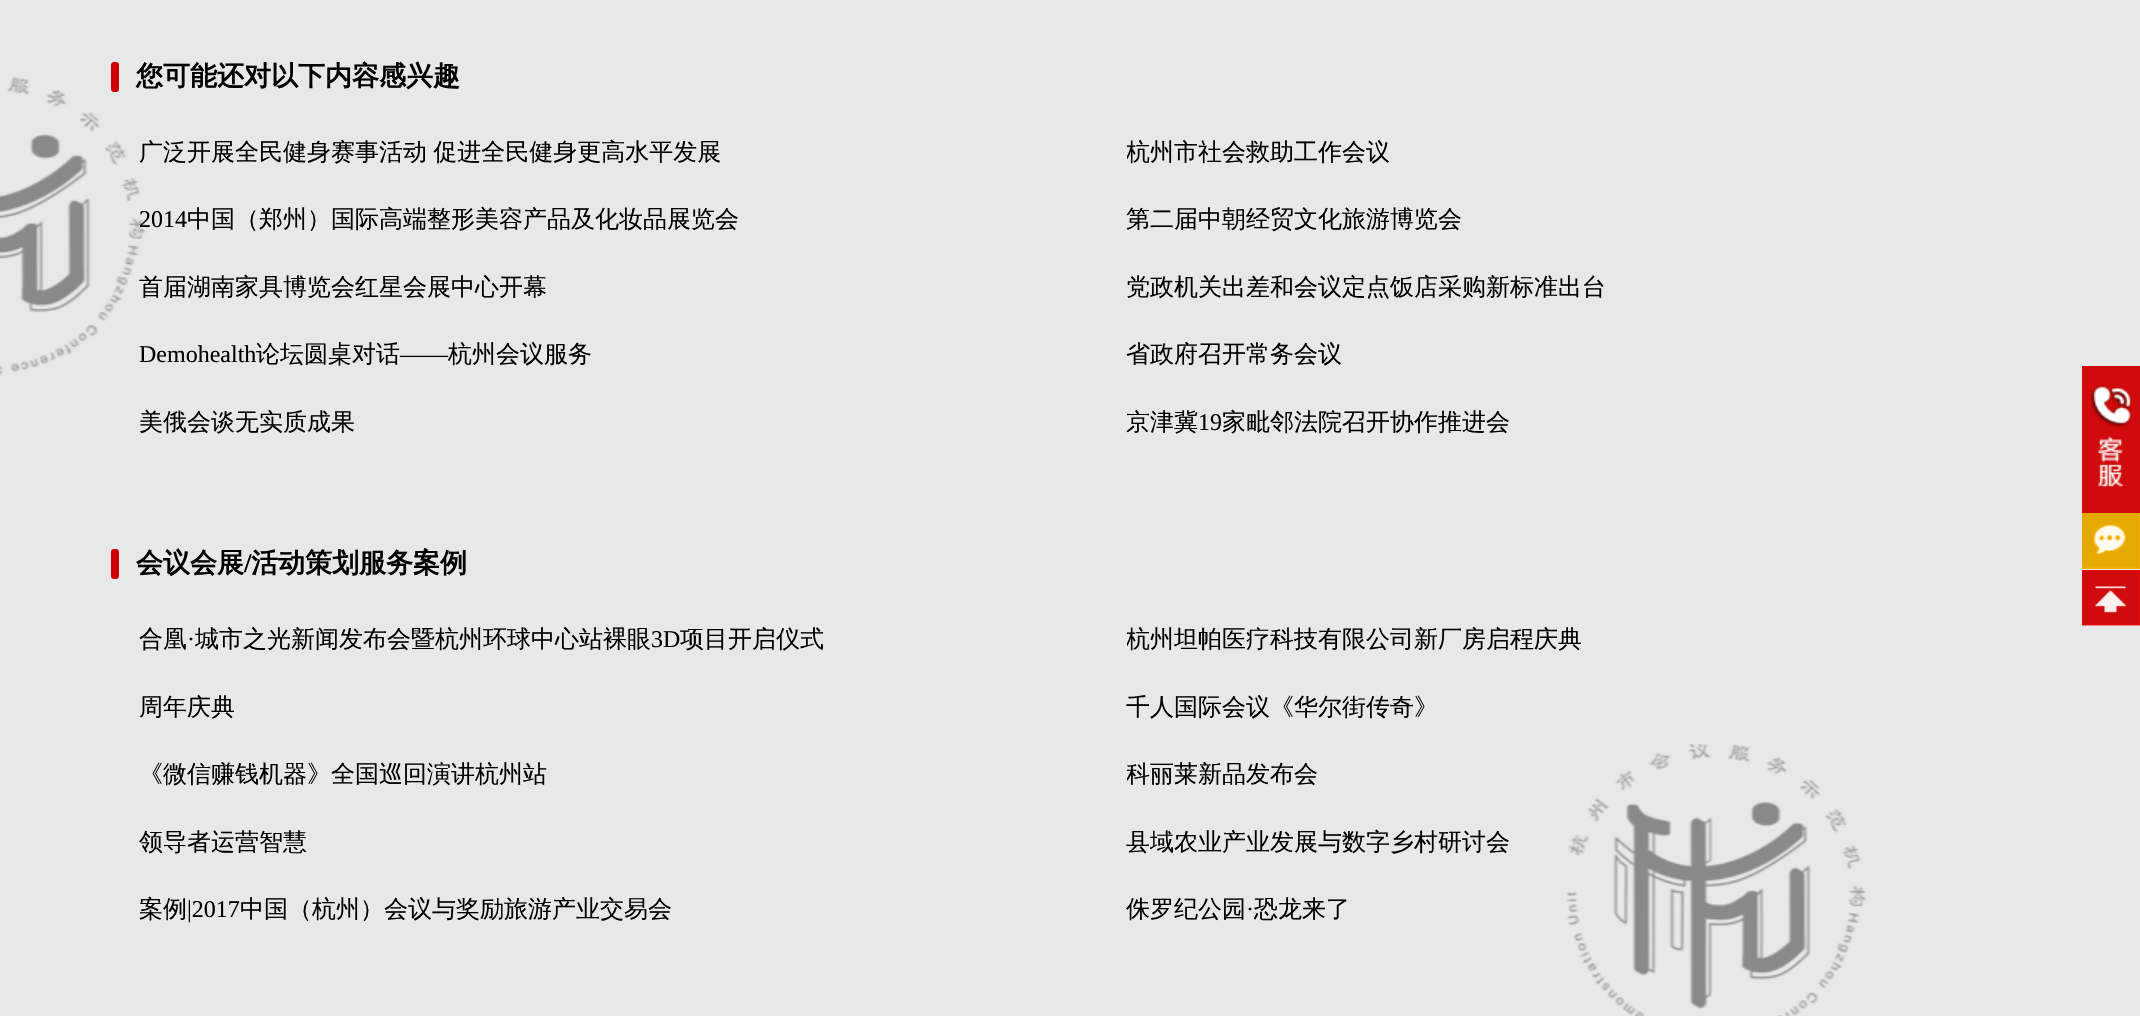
void draw(SkCanvas* canvas) {
    SkPaint paint;
    paint.setAntiAlias(true);
    auto face = [&](const char* family, int weight, float size, bool italic = false) {
        SkFontStyle style(weight, SkFontStyle::kNormal_Width,
            italic ? SkFontStyle::kItalic_Slant : SkFontStyle::kUpright_Slant);
        SkFont result(fontMgr->matchFamilyStyle(family, style), size);
        result.setSubpixel(true);
        return result;
    };
    auto write = [&](const char* s, float x, float y, const SkFont& font, SkColor color) {
        SkPaint ink(SkColor4f::FromColor(color));
        ink.setAntiAlias(true);
        canvas->drawString(s, x, y, font, ink);
    };
    auto writeSpaced = [&](const char* s, float x, float y, const SkFont& font, const SkPaint& ink, float letter, float word) {
        std::vector<SkGlyphID> glyphs(font.countText(s, strlen(s), SkTextEncoding::kUTF8));
        std::vector<float> xs(glyphs.size());
        font.textToGlyphs(s, strlen(s), SkTextEncoding::kUTF8, glyphs);
        font.getXPos(glyphs, xs, x);
        float extra = 0;
        for (size_t i = 0; i < glyphs.size(); i++) {
            xs[i] += extra;
            extra += letter + word * (glyphs[i] == font.unicharToGlyph(' '));
        }
        canvas->drawTextBlob(SkTextBlob::MakeFromPosHGlyphs(glyphs, xs, y, font), 0, 0, ink);
    };
    auto card = [&](float x, float y, float w, float h, float radius, SkColor color) {
        SkPaint ink(SkColor4f::FromColor(color));
        ink.setAntiAlias(true);
        canvas->drawRoundRect(SkRect::MakeXYWH(x, y, w, h), radius, radius, ink);
    };
    auto paste = [&](const char* path, float x, float y, float w, float h) {
        auto image = SkImages::DeferredFromEncodedData(SkData::MakeFromFileName(path));
        canvas->drawImageRect(image, SkRect::MakeXYWH(x, y, w, h), SkSamplingOptions());
    };
    canvas->clear(SkColorSetRGB(231, 233, 232));
    paste("pic1.png", 0, 76, 1867, 940);
    card(111, 62, 8, 30, 3, SkColorSetRGB(204, 0, 0));
    auto kFont1 = face("WenQuanYi Zen Hei", 700, 27);
    write("您可能还对以下内容感兴趣", 136, 85, kFont1, SK_ColorBLACK);
    auto kFont2 = face("WenQuanYi Zen Hei", 500, 24);
    paint.setColor(SK_ColorBLACK);
    writeSpaced("广泛开展全民健身赛事活动 促进全民健身更高水平发展", 139, 160, kFont2, paint, 0, -1);
    canvas->save();
    canvas->clipRect(SkRect::MakeXYWH(1127, 119, 874, 67));
    write("杭州市社会救助工作会议", 1126, 160, kFont2, SK_ColorBLACK);
    canvas->restore();
    auto kFont3 = face("Liberation Serif", 400, 24);
    write("2014", 139, 227, kFont3, SK_ColorBLACK);
    write("中国（郑州）国际高端整形美容产品及化妆品展览会", 187, 227, kFont2, SK_ColorBLACK);
    write("第二届中朝经贸文化旅游博览会", 1126, 227, kFont2, SK_ColorBLACK);
    write("首届湖南家具博览会红星会展中心开幕", 139, 295, kFont2, SK_ColorBLACK);
    write("党政机关出差和会议定点饭店采购新标准出台", 1126, 295, kFont2, SK_ColorBLACK);
    write("Demohealth", 139, 362, kFont3, SK_ColorBLACK);
    write("论坛圆桌对话", 256, 362, kFont2, SK_ColorBLACK);
    write("——", 400, 362, kFont3, SK_ColorBLACK);
    write("杭州会议服务", 448, 362, kFont2, SK_ColorBLACK);
    write("省政府召开常务会议", 1126, 362, kFont2, SK_ColorBLACK);
    write("美俄会谈无实质成果", 139, 430, kFont2, SK_ColorBLACK);
    write("京津冀", 1126, 430, kFont2, SK_ColorBLACK);
    write("19", 1198, 430, kFont3, SK_ColorBLACK);
    write("家毗邻法院召开协作推进会", 1222, 430, kFont2, SK_ColorBLACK);
    card(111, 549, 8, 30, 3, SkColorSetRGB(204, 0, 0));
    write("会议会展", 136, 572, kFont1, SK_ColorBLACK);
    auto kFont4 = face("Liberation Serif", 700, 27);
    write("/", 244, 572, kFont4, SK_ColorBLACK);
    write("活动策划服务案例", 251, 572, kFont1, SK_ColorBLACK);
    write("合凰", 139, 647, kFont2, SK_ColorBLACK);
    write("·", 187, 647, kFont3, SK_ColorBLACK);
    write("城市之光新闻发布会暨杭州环球中心站裸眼", 195, 647, kFont2, SK_ColorBLACK);
    write("3D", 651, 647, kFont3, SK_ColorBLACK);
    write("项目开启仪式", 680, 647, kFont2, SK_ColorBLACK);
    canvas->save();
    canvas->clipRect(SkRect::MakeXYWH(1127, 606, 874, 68));
    write("杭州坦帕医疗科技有限公司新厂房启程庆典", 1126, 647, kFont2, SK_ColorBLACK);
    canvas->restore();
    write("周年庆典", 139, 715, kFont2, SK_ColorBLACK);
    write("千人国际会议《华尔街传奇》", 1126, 715, kFont2, SK_ColorBLACK);
    write("《微信赚钱机器》全国巡回演讲杭州站", 139, 782, kFont2, SK_ColorBLACK);
    canvas->save();
    canvas->clipRect(SkRect::MakeXYWH(1127, 741, 874, 68));
    write("科丽莱新品发布会", 1126, 782, kFont2, SK_ColorBLACK);
    canvas->restore();
    write("领导者运营智慧", 139, 850, kFont2, SK_ColorBLACK);
    write("县域农业产业发展与数字乡村研讨会", 1126, 850, kFont2, SK_ColorBLACK);
    write("案例", 139, 917, kFont2, SK_ColorBLACK);
    write("|2017", 187, 917, kFont3, SK_ColorBLACK);
    write("中国（杭州）会议与奖励旅游产业交易会", 240, 917, kFont2, SK_ColorBLACK);
    write("侏罗纪公园", 1126, 917, kFont2, SK_ColorBLACK);
    write("·", 1246, 917, kFont3, SK_ColorBLACK);
    write("恐龙来了", 1254, 917, kFont2, SK_ColorBLACK);
    paste("pic2.png", 2082, 366, 58, 147);
    paste("pic3.png", 2082, 513, 58, 56);
    paste("pic4.png", 2082, 570, 58, 56);
}
